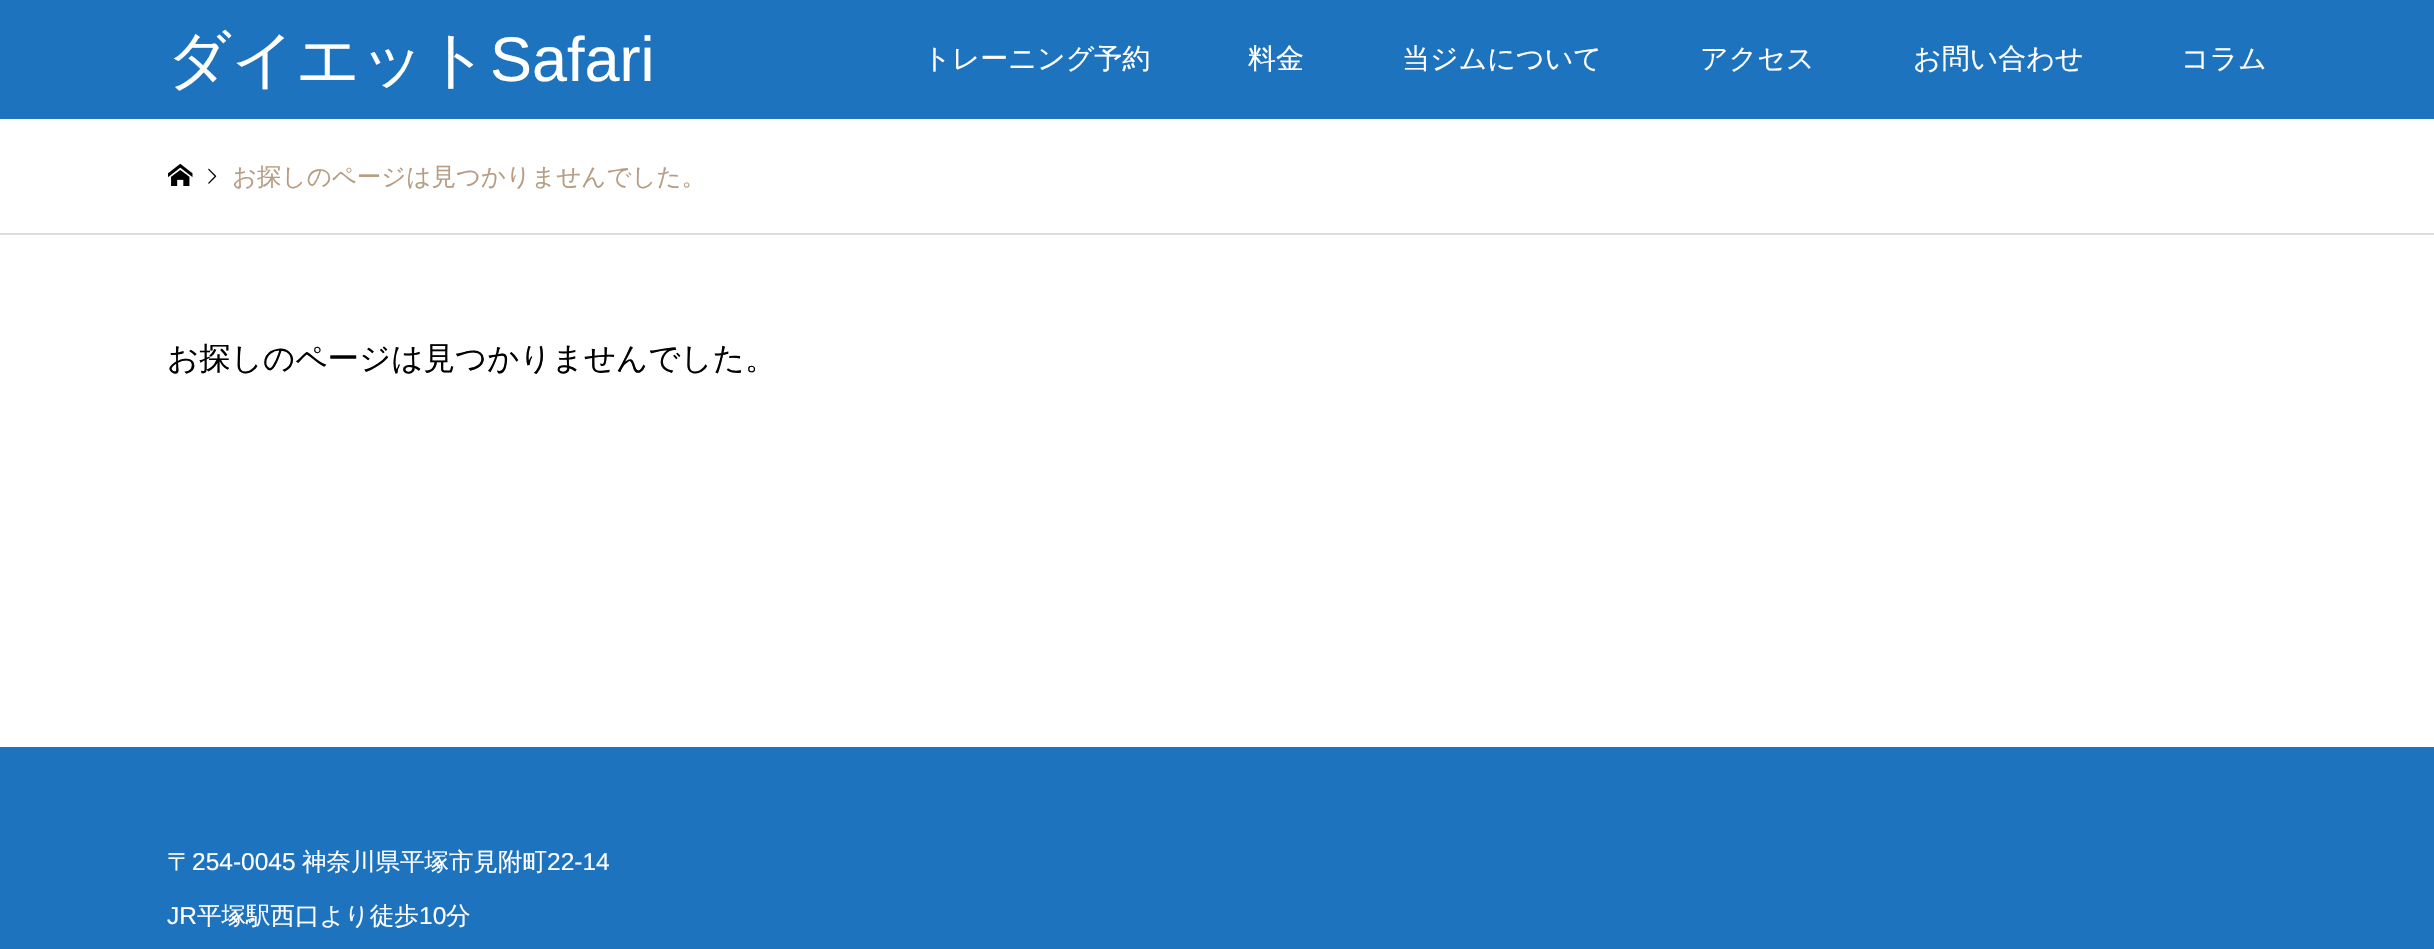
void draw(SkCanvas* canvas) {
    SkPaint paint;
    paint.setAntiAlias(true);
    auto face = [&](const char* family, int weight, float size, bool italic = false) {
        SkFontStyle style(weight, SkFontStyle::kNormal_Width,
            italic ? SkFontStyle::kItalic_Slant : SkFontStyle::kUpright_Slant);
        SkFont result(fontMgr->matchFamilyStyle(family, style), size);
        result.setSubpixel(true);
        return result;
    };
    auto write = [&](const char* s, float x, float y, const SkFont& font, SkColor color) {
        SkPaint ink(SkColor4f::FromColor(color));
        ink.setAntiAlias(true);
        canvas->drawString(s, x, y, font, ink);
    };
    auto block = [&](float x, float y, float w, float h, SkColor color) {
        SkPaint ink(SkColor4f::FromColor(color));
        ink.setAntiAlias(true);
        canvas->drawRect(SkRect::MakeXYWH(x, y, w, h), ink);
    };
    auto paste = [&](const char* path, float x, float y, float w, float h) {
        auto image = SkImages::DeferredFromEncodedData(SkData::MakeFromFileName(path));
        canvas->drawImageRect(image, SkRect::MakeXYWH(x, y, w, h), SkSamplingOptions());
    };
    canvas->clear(SK_ColorWHITE);
    block(0, 0, 2434, 119, SkColorSetRGB(30, 115, 190));
    auto kFont1 = face("WenQuanYi Zen Hei", 500, 63);
    write("ダイエット", 167, 81, kFont1, SK_ColorWHITE);
    auto kFont2 = face("Liberation Sans", 400, 63);
    write("Safari", 490, 81, kFont2, SK_ColorWHITE);
    auto kFont3 = face("WenQuanYi Zen Hei", 500, 28);
    write("トレーニング予約", 923, 68, kFont3, SK_ColorWHITE);
    write("料金", 1248, 68, kFont3, SK_ColorWHITE);
    write("当ジムについて", 1402, 68, kFont3, SK_ColorWHITE);
    write("アクセス", 1700, 68, kFont3, SK_ColorWHITE);
    write("お問い合わせ", 1913, 68, kFont3, SK_ColorWHITE);
    write("コラム", 2181, 68, kFont3, SK_ColorWHITE);
    block(0, 233, 2434, 2, SkColorSetRGB(221, 221, 221));
    paste("pic1.png", 168, 163, 25, 23);
    paste("pic2.png", 208, 168, 9, 16);
    auto kFont4 = face("WenQuanYi Zen Hei", 500, 24.5f);
    write("お探しのページは見つかりませんでした。", 232, 185, kFont4, SkColorSetRGB(182, 158, 132));
    auto kFont5 = face("WenQuanYi Zen Hei", 500, 31.5f);
    write("お探しのページは見つかりませんでした。", 167, 369, kFont5, SK_ColorBLACK);
    block(0, 747, 2434, 202, SkColorSetRGB(30, 115, 190));
    write("〒", 167, 870, kFont4, SK_ColorWHITE);
    auto kFont6 = face("Liberation Sans", 400, 24.5f);
    write("254-0045", 192, 870, kFont6, SK_ColorWHITE);
    write("神奈川県平塚市見附町", 302, 870, kFont4, SK_ColorWHITE);
    write("22-14", 547, 870, kFont6, SK_ColorWHITE);
    write("JR", 167, 924, kFont6, SK_ColorWHITE);
    write("平塚駅西口より徒歩", 197, 924, kFont4, SK_ColorWHITE);
    write("10", 419, 924, kFont6, SK_ColorWHITE);
    write("分", 446, 924, kFont4, SK_ColorWHITE);
}
